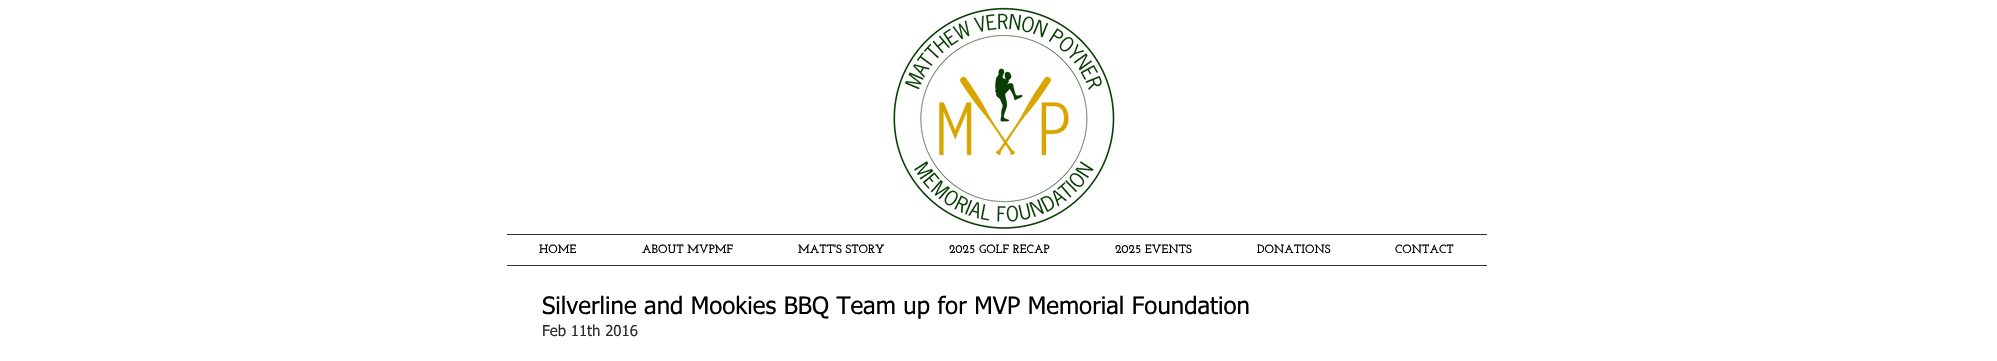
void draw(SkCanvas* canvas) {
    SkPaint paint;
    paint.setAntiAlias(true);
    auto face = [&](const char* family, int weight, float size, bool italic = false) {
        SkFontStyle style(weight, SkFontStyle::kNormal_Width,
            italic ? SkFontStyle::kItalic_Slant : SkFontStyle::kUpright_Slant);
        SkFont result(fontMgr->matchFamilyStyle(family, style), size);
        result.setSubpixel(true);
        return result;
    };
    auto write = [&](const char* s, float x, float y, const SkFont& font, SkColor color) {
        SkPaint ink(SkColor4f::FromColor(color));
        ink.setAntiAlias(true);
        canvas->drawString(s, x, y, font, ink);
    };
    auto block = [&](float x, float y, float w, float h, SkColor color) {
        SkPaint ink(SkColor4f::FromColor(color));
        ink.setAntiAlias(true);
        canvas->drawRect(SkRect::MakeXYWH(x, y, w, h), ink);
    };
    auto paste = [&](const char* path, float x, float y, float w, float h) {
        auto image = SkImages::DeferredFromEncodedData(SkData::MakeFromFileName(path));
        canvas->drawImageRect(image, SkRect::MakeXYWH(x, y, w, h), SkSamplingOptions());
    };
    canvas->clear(SK_ColorWHITE);
    paste("pic1.png", 893, 7, 222, 222);
    block(507, 234, 980, 1, SkColorSetRGB(51, 51, 51));
    block(507, 265, 980, 1, SkColorSetRGB(51, 51, 51));
    auto kFont1 = face("Josefin Slab", 700, 12);
    write("HOME", 539, 253, kFont1, SK_ColorBLACK);
    write("ABOUT MVPMF", 642, 253, kFont1, SK_ColorBLACK);
    write("MATT'S STORY", 798, 253, kFont1, SK_ColorBLACK);
    write("2025 GOLF RECAP", 949, 253, kFont1, SK_ColorBLACK);
    write("2025 EVENTS", 1115, 253, kFont1, SK_ColorBLACK);
    write("DONATIONS", 1257, 253, kFont1, SK_ColorBLACK);
    write("CONTACT", 1395, 253, kFont1, SK_ColorBLACK);
    auto kFont2 = face("tahoma", 400, 24);
    write("Silverline and Mookies BBQ Team up for MVP Memorial Foundation", 542, 314, kFont2, SK_ColorBLACK);
    auto kFont3 = face("tahoma", 400, 15);
    write("Feb 11th 2016", 542, 336, kFont3, SkColorSetRGB(41, 44, 45));
}
